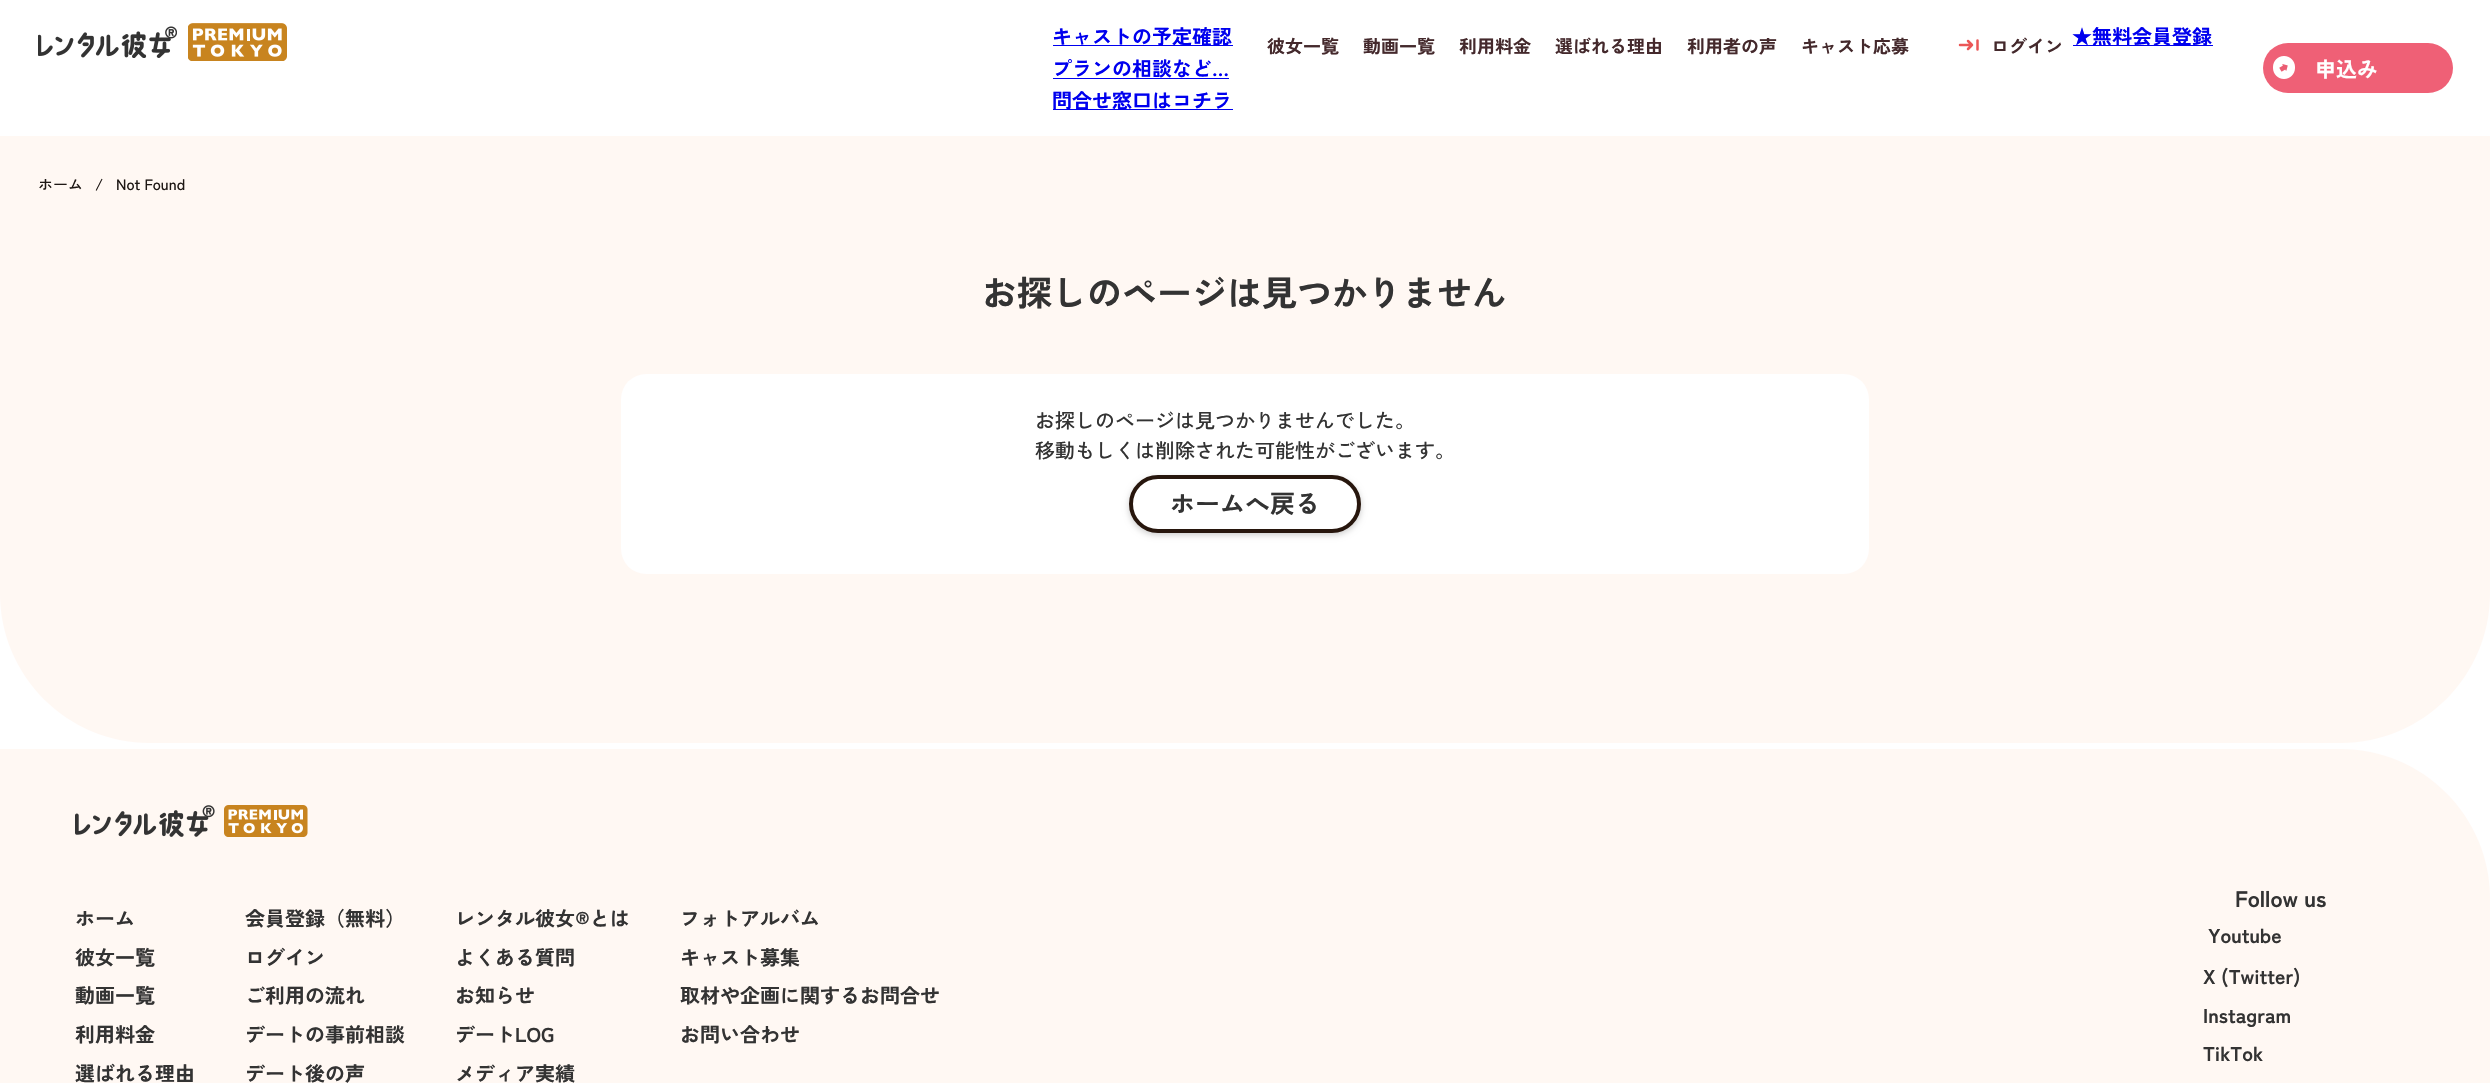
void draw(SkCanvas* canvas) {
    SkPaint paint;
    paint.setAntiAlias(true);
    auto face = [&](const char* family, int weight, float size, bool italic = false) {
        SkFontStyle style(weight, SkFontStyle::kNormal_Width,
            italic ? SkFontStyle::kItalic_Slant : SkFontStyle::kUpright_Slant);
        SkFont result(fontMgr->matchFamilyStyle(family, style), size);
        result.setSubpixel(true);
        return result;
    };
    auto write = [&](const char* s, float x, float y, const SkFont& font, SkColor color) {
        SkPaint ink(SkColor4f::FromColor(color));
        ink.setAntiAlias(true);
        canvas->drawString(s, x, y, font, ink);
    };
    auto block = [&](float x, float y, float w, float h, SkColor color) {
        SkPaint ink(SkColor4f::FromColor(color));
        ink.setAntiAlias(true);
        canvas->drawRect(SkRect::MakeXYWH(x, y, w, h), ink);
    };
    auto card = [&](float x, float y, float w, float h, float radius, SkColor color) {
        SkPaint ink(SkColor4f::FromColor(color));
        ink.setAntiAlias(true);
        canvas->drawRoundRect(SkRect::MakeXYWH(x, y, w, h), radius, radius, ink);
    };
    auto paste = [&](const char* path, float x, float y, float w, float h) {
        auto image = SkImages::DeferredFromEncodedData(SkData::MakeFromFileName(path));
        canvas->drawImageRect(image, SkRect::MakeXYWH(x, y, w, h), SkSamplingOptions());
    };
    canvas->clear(SK_ColorWHITE);
    paste("pic1.png", 38, 26, 139, 32);
    paste("pic2.png", 188, 23, 99, 38);
    block(1053, 45, 180, 1, SkColorSetRGB(0, 0, 238));
    auto kFont1 = face("Zen Kaku Gothic New", 700, 20);
    write("キャストの予定確認", 1052, 44, kFont1, SkColorSetRGB(0, 0, 238));
    write("プランの相談など…", 1052, 76, kFont1, SkColorSetRGB(0, 0, 238));
    block(1053, 78, 176, 1, SkColorSetRGB(0, 0, 238));
    block(1053, 109, 180, 1, SkColorSetRGB(0, 0, 238));
    write("問合せ窓口はコチラ", 1052, 108, kFont1, SkColorSetRGB(0, 0, 238));
    auto kFont2 = face("Zen Kaku Gothic New", 700, 18);
    write("彼女一覧", 1267, 53, kFont2, SkColorSetRGB(68, 41, 44));
    write("動画一覧", 1363, 53, kFont2, SkColorSetRGB(68, 41, 44));
    write("利用料金", 1459, 53, kFont2, SkColorSetRGB(68, 41, 44));
    write("選ばれる理由", 1555, 53, kFont2, SkColorSetRGB(68, 41, 44));
    write("利用者の声", 1687, 53, kFont2, SkColorSetRGB(68, 41, 44));
    write("キャスト応募", 1801, 53, kFont2, SkColorSetRGB(68, 41, 44));
    paint.setStyle(SkPaint::kStroke_Style);
    paint.setStrokeWidth(2.5f);
    paint.setStrokeCap(SkPaint::kRound_Cap);
    paint.setStrokeJoin(SkPaint::kRound_Join);
    paint.setColor(SkColorSetRGB(235, 87, 87));
    canvas->drawPath(SkPathBuilder().moveTo(1968, 41).lineTo(1972, 45).lineTo(1968, 49).moveTo(1960, 45).lineTo(1972, 45).moveTo(1977.5f, 40.5f).lineTo(1977.5f, 49.5f).detach(), paint);
    write("ログイン", 1991, 53, kFont2, SkColorSetRGB(68, 41, 44));
    block(2073, 45, 140, 1, SkColorSetRGB(0, 0, 238));
    write("★無料会員登録", 2072, 44, kFont1, SkColorSetRGB(0, 0, 238));
    card(2263, 43, 190, 50, 25, SkColorSetRGB(239, 96, 118));
    paste("pic3.png", 2273, 56, 22, 23);
    auto kFont3 = face("Zen Kaku Gothic New", 700, 21);
    write("申込み", 2315, 77, kFont3, SK_ColorWHITE);
    paint.setStyle(SkPaint::kFill_Style);
    paint.setColor(SkColorSetRGB(255, 248, 243));
    canvas->drawPath(SkPathBuilder().moveTo(0, 136).lineTo(2490, 136).lineTo(2490, 593).cubicTo(2490, 676, 2423, 743, 2340, 743).lineTo(150, 743).cubicTo(67, 743, 0, 676, 0, 593).close().detach(), paint);
    auto kFont4 = face("Zen Kaku Gothic New", 500, 15);
    write("ホーム", 38, 190, kFont4, SkColorSetRGB(30, 24, 21));
    write("/", 95, 190, kFont4, SkColorSetRGB(30, 24, 21));
    write("Not Found", 116, 190, kFont4, SkColorSetRGB(30, 24, 21));
    auto kFont5 = face("Zen Kaku Gothic New", 700, 35);
    write("お探しのページは見つかりません", 982, 306, kFont5, SkColorSetRGB(51, 51, 51));
    card(621, 374, 1248, 200, 25, SK_ColorWHITE);
    auto kFont6 = face("Zen Kaku Gothic New", 500, 20);
    write("お探しのページは見つかりませんでした。", 1035, 428, kFont6, SkColorSetRGB(51, 51, 51));
    write("移動もしくは削除された可能性がございます。", 1035, 458, kFont6, SkColorSetRGB(51, 51, 51));
    paint.setColor(SkColorSetARGB(51, 0, 0, 0));
    paint.setMaskFilter(SkMaskFilter::MakeBlur(kNormal_SkBlurStyle, 3));
    canvas->drawRoundRect(SkRect::MakeXYWH(1129, 478, 232, 57), 28.5f, 28.5f, paint);
    paint.setMaskFilter(nullptr);
    paint.setColor(SK_ColorWHITE);
    canvas->drawRoundRect(SkRect::MakeXYWH(1131, 477, 228, 54), 27, 27, paint);
    paint.setStyle(SkPaint::kStroke_Style);
    paint.setStrokeWidth(4);
    paint.setStrokeCap(SkPaint::kButt_Cap);
    paint.setStrokeJoin(SkPaint::kMiter_Join);
    paint.setColor(SkColorSetRGB(39, 22, 13));
    canvas->drawRoundRect(SkRect::MakeXYWH(1131, 477, 228, 54), 27, 27, paint);
    auto kFont7 = face("Zen Kaku Gothic New", 700, 25);
    write("ホームへ戻る", 1170, 513, kFont7, SkColorSetRGB(51, 51, 51));
    paint.setStyle(SkPaint::kFill_Style);
    paint.setColor(SkColorSetRGB(255, 248, 243));
    canvas->drawPath(SkPathBuilder().moveTo(0, 749).lineTo(2340, 749).cubicTo(2423, 749, 2490, 816, 2490, 899).lineTo(2490, 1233).lineTo(0, 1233).close().detach(), paint);
    paste("pic4.png", 75, 805, 140, 32);
    paste("pic5.png", 224, 805, 84, 32);
    write("ホーム", 75, 926, kFont1, SkColorSetRGB(51, 51, 51));
    write("会員登録（無料）", 245, 926, kFont1, SkColorSetRGB(51, 51, 51));
    write("レンタル彼女®とは", 455, 926, kFont1, SkColorSetRGB(51, 51, 51));
    write("フォトアルバム", 680, 926, kFont1, SkColorSetRGB(51, 51, 51));
    write("彼女一覧", 75, 965, kFont1, SkColorSetRGB(51, 51, 51));
    write("ログイン", 245, 965, kFont1, SkColorSetRGB(51, 51, 51));
    write("よくある質問", 455, 965, kFont1, SkColorSetRGB(51, 51, 51));
    write("キャスト募集", 680, 965, kFont1, SkColorSetRGB(51, 51, 51));
    write("動画一覧", 75, 1003, kFont1, SkColorSetRGB(51, 51, 51));
    write("ご利用の流れ", 245, 1003, kFont1, SkColorSetRGB(51, 51, 51));
    write("お知らせ", 455, 1003, kFont1, SkColorSetRGB(51, 51, 51));
    write("取材や企画に関するお問合せ", 680, 1003, kFont1, SkColorSetRGB(51, 51, 51));
    write("利用料金", 75, 1042, kFont1, SkColorSetRGB(51, 51, 51));
    write("デートの事前相談", 245, 1042, kFont1, SkColorSetRGB(51, 51, 51));
    write("デートLOG", 455, 1042, kFont1, SkColorSetRGB(51, 51, 51));
    write("お問い合わせ", 680, 1042, kFont1, SkColorSetRGB(51, 51, 51));
    write("選ばれる理由", 75, 1081, kFont1, SkColorSetRGB(51, 51, 51));
    write("デート後の声", 245, 1081, kFont1, SkColorSetRGB(51, 51, 51));
    write("メディア実績", 455, 1081, kFont1, SkColorSetRGB(51, 51, 51));
    auto kFont8 = face("Zen Kaku Gothic New", 700, 22.5f);
    write("Follow us", 2235, 907, kFont8, SkColorSetRGB(51, 51, 51));
    write("Youtube", 2208, 943, kFont1, SkColorSetRGB(51, 51, 51));
    write("X (Twitter)", 2203, 984, kFont1, SkColorSetRGB(51, 51, 51));
    write("Instagram", 2203, 1023, kFont1, SkColorSetRGB(51, 51, 51));
    write("TikTok", 2203, 1061, kFont1, SkColorSetRGB(51, 51, 51));
}
